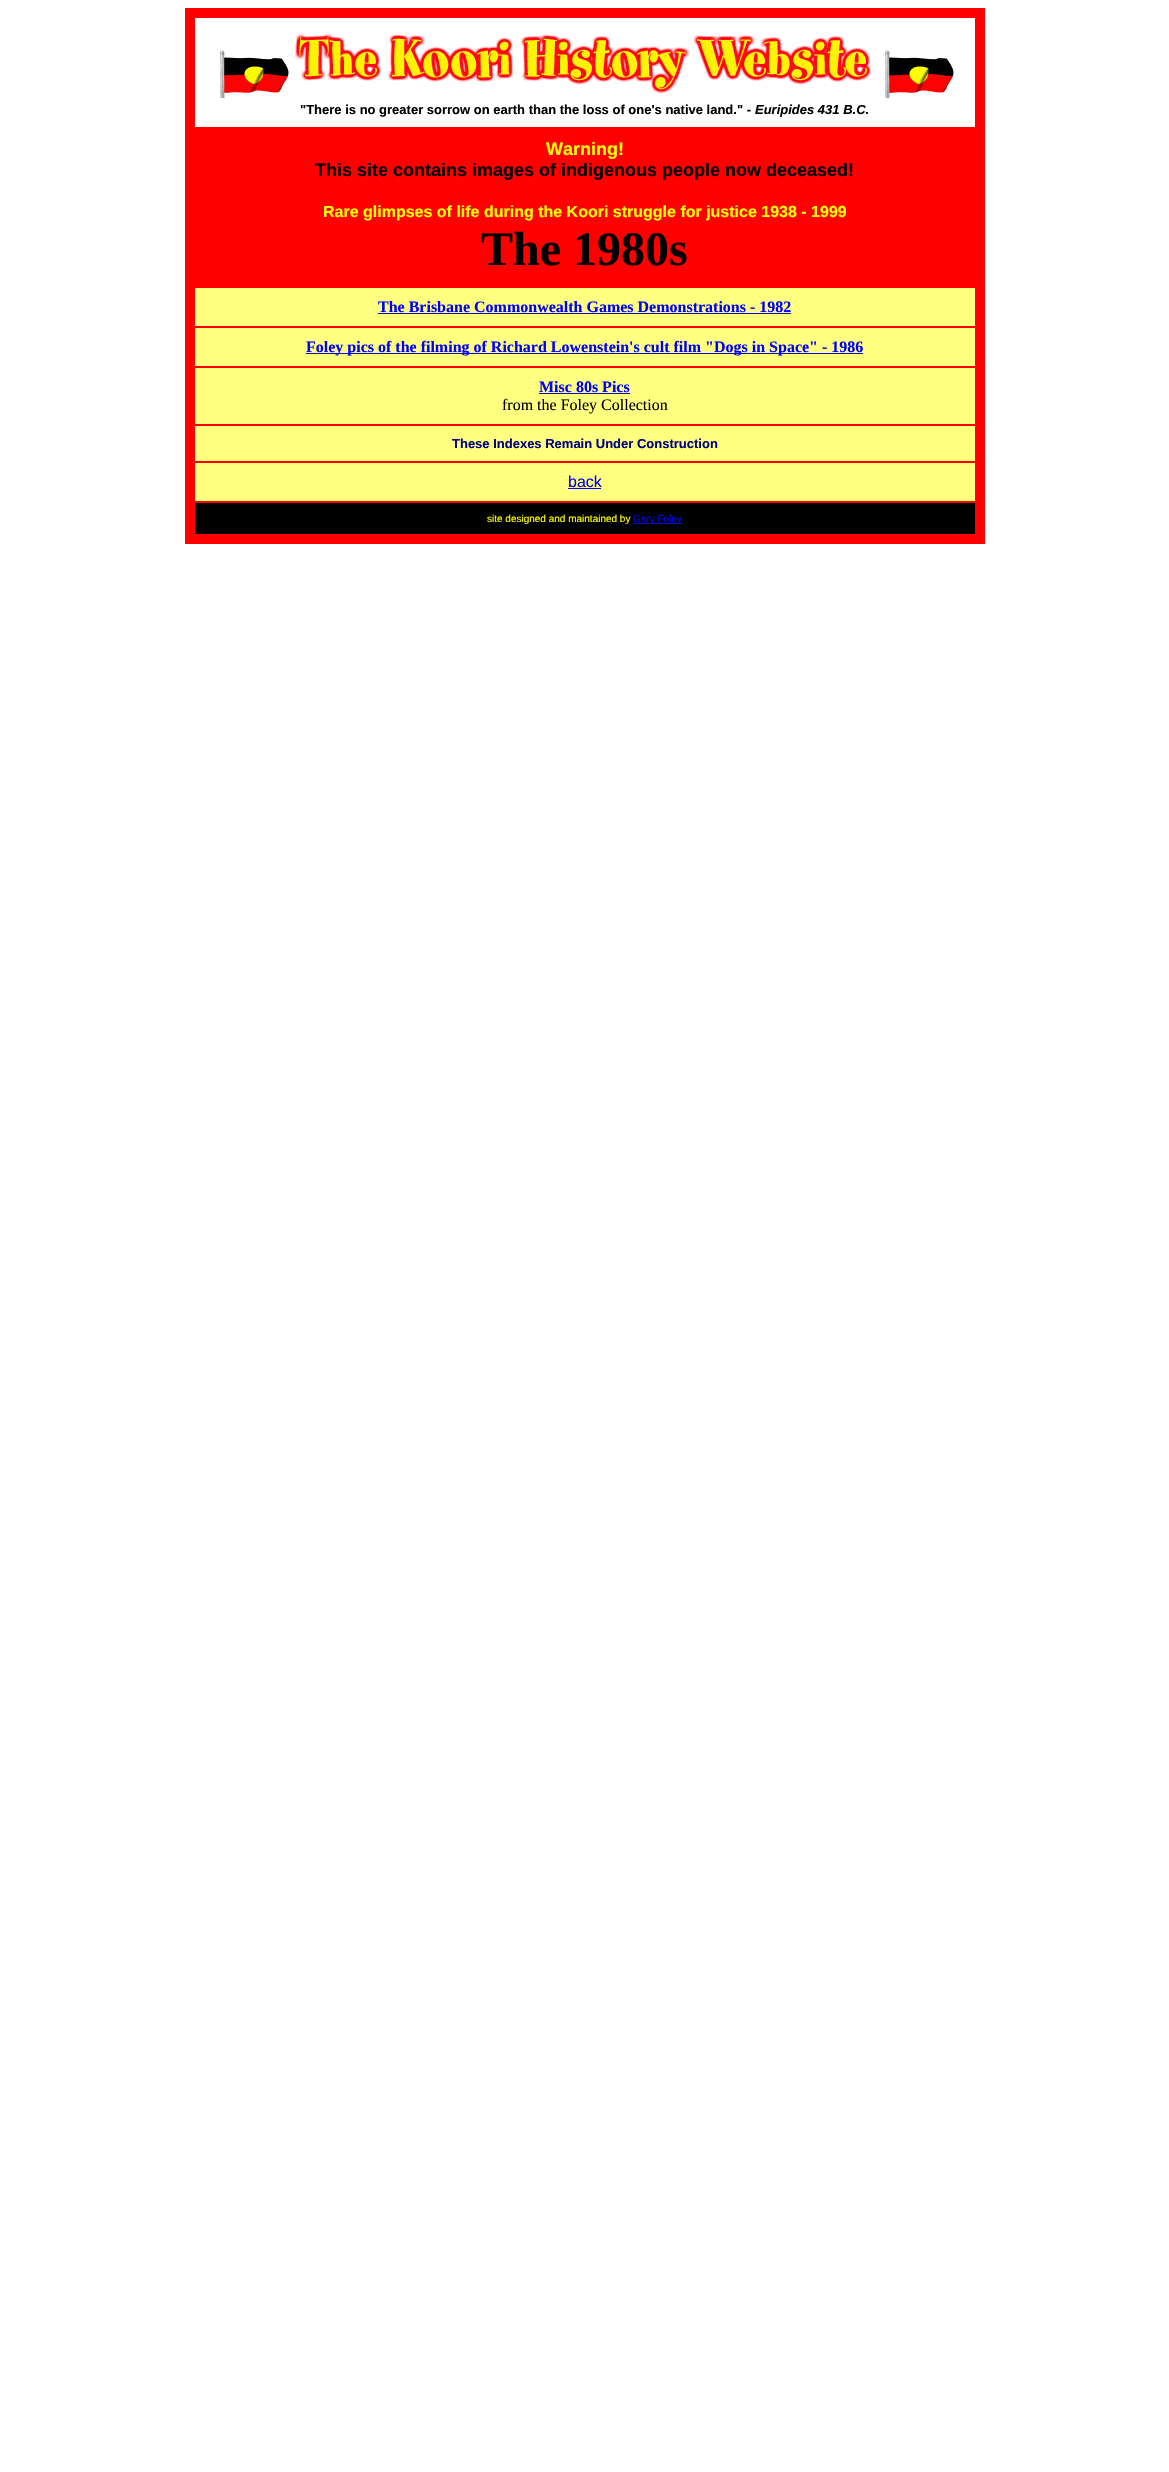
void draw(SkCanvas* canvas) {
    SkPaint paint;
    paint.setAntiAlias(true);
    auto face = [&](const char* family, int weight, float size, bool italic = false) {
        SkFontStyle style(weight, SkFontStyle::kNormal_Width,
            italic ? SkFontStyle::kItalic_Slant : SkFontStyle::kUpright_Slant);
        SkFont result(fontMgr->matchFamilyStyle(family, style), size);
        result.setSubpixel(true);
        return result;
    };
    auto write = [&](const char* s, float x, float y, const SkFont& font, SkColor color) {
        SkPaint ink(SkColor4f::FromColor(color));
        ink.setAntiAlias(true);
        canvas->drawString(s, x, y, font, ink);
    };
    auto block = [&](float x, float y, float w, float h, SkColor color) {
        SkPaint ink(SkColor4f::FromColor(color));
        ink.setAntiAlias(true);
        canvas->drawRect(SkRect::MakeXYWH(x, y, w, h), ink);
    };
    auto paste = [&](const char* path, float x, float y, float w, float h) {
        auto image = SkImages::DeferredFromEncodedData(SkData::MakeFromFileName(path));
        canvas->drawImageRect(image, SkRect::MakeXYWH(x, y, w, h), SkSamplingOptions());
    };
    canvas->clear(SK_ColorWHITE);
    block(195, 288, 780, 213, SkColorSetRGB(255, 255, 128));
    paint.setStyle(SkPaint::kStroke_Style);
    paint.setStrokeWidth(9);
    paint.setColor(SkColorSetRGB(255, 0, 0));
    canvas->drawRect(SkRect::MakeXYWH(189.5f, 12.5f, 791, 527), paint);
    paint.setStrokeWidth(1);
    canvas->drawRect(SkRect::MakeXYWH(194.5f, 17.5f, 781, 110), paint);
    paste("pic1.png", 219, 50, 70, 48);
    paste("pic2.png", 295, 33, 576, 61);
    paste("pic1.png", 884, 50, 70, 48);
    auto kFont1 = face("Liberation Sans", 700, 13);
    write("\"There is no greater sorrow on earth than the loss of one's native land.\" -", 300, 114, kFont1, SK_ColorBLACK);
    auto kFont2 = face("Liberation Sans", 700, 13, true);
    write("Euripides 431 B.C.", 755, 114, kFont2, SK_ColorBLACK);
    block(194, 128, 782, 159, SkColorSetRGB(255, 0, 0));
    auto kFont3 = face("Liberation Sans", 700, 18);
    write("Warning!", 546, 155, kFont3, SkColorSetRGB(255, 255, 0));
    write("This site contains images of indigenous people now deceased!", 315, 176, kFont3, SK_ColorBLACK);
    auto kFont4 = face("Liberation Sans", 700, 16);
    write("Rare glimpses of life during the Koori struggle for justice 1938 - 1999", 323, 217, kFont4, SkColorSetRGB(255, 255, 0));
    auto kFont5 = face("Liberation Serif", 700, 48);
    write("The 1980s", 481, 265, kFont5, SK_ColorBLACK);
    canvas->drawRect(SkRect::MakeXYWH(194.5f, 287.5f, 781, 39), paint);
    auto kFont6 = face("Liberation Serif", 700, 16);
    write("The Brisbane Commonwealth Games Demonstrations - 1982", 378, 312, kFont6, SkColorSetRGB(0, 0, 255));
    block(378, 313, 413, 1, SkColorSetRGB(0, 0, 255));
    canvas->drawRect(SkRect::MakeXYWH(194.5f, 327.5f, 781, 39), paint);
    block(306, 353, 557, 1, SkColorSetRGB(0, 0, 255));
    write("Foley pics of the filming of Richard Lowenstein's cult film \"Dogs in Space\" - 1986", 306, 352, kFont6, SkColorSetRGB(0, 0, 255));
    canvas->drawRect(SkRect::MakeXYWH(194.5f, 367.5f, 781, 57), paint);
    write("Misc 80s Pics", 539, 392, kFont6, SkColorSetRGB(0, 0, 255));
    block(539, 393, 91, 1, SkColorSetRGB(0, 0, 255));
    auto kFont7 = face("Liberation Serif", 400, 16);
    write("from the Foley Collection", 502, 410, kFont7, SK_ColorBLACK);
    canvas->drawRect(SkRect::MakeXYWH(194.5f, 425.5f, 781, 36), paint);
    write("These Indexes Remain Under Construction", 452, 448, kFont1, SkColorSetRGB(0, 0, 128));
    canvas->drawRect(SkRect::MakeXYWH(194.5f, 462.5f, 781, 39), paint);
    auto kFont8 = face("Liberation Sans", 400, 16);
    write("back", 568, 487, kFont8, SkColorSetRGB(0, 0, 255));
    block(568, 488, 33, 1, SkColorSetRGB(0, 0, 255));
    paint.setStyle(SkPaint::kFill_Style);
    paint.setColor(SK_ColorBLACK);
    canvas->drawRect(SkRect::MakeXYWH(194.5f, 502.5f, 781, 32), paint);
    paint.setStyle(SkPaint::kStroke_Style);
    paint.setColor(SkColorSetRGB(255, 0, 0));
    canvas->drawRect(SkRect::MakeXYWH(194.5f, 502.5f, 781, 32), paint);
    auto kFont9 = face("Liberation Sans", 400, 10);
    write("site designed and maintained by", 487, 522, kFont9, SkColorSetRGB(255, 255, 0));
    block(633, 523, 49, 1, SkColorSetRGB(0, 0, 255));
    write("Gary Foley", 633, 522, kFont9, SkColorSetRGB(0, 0, 255));
}
